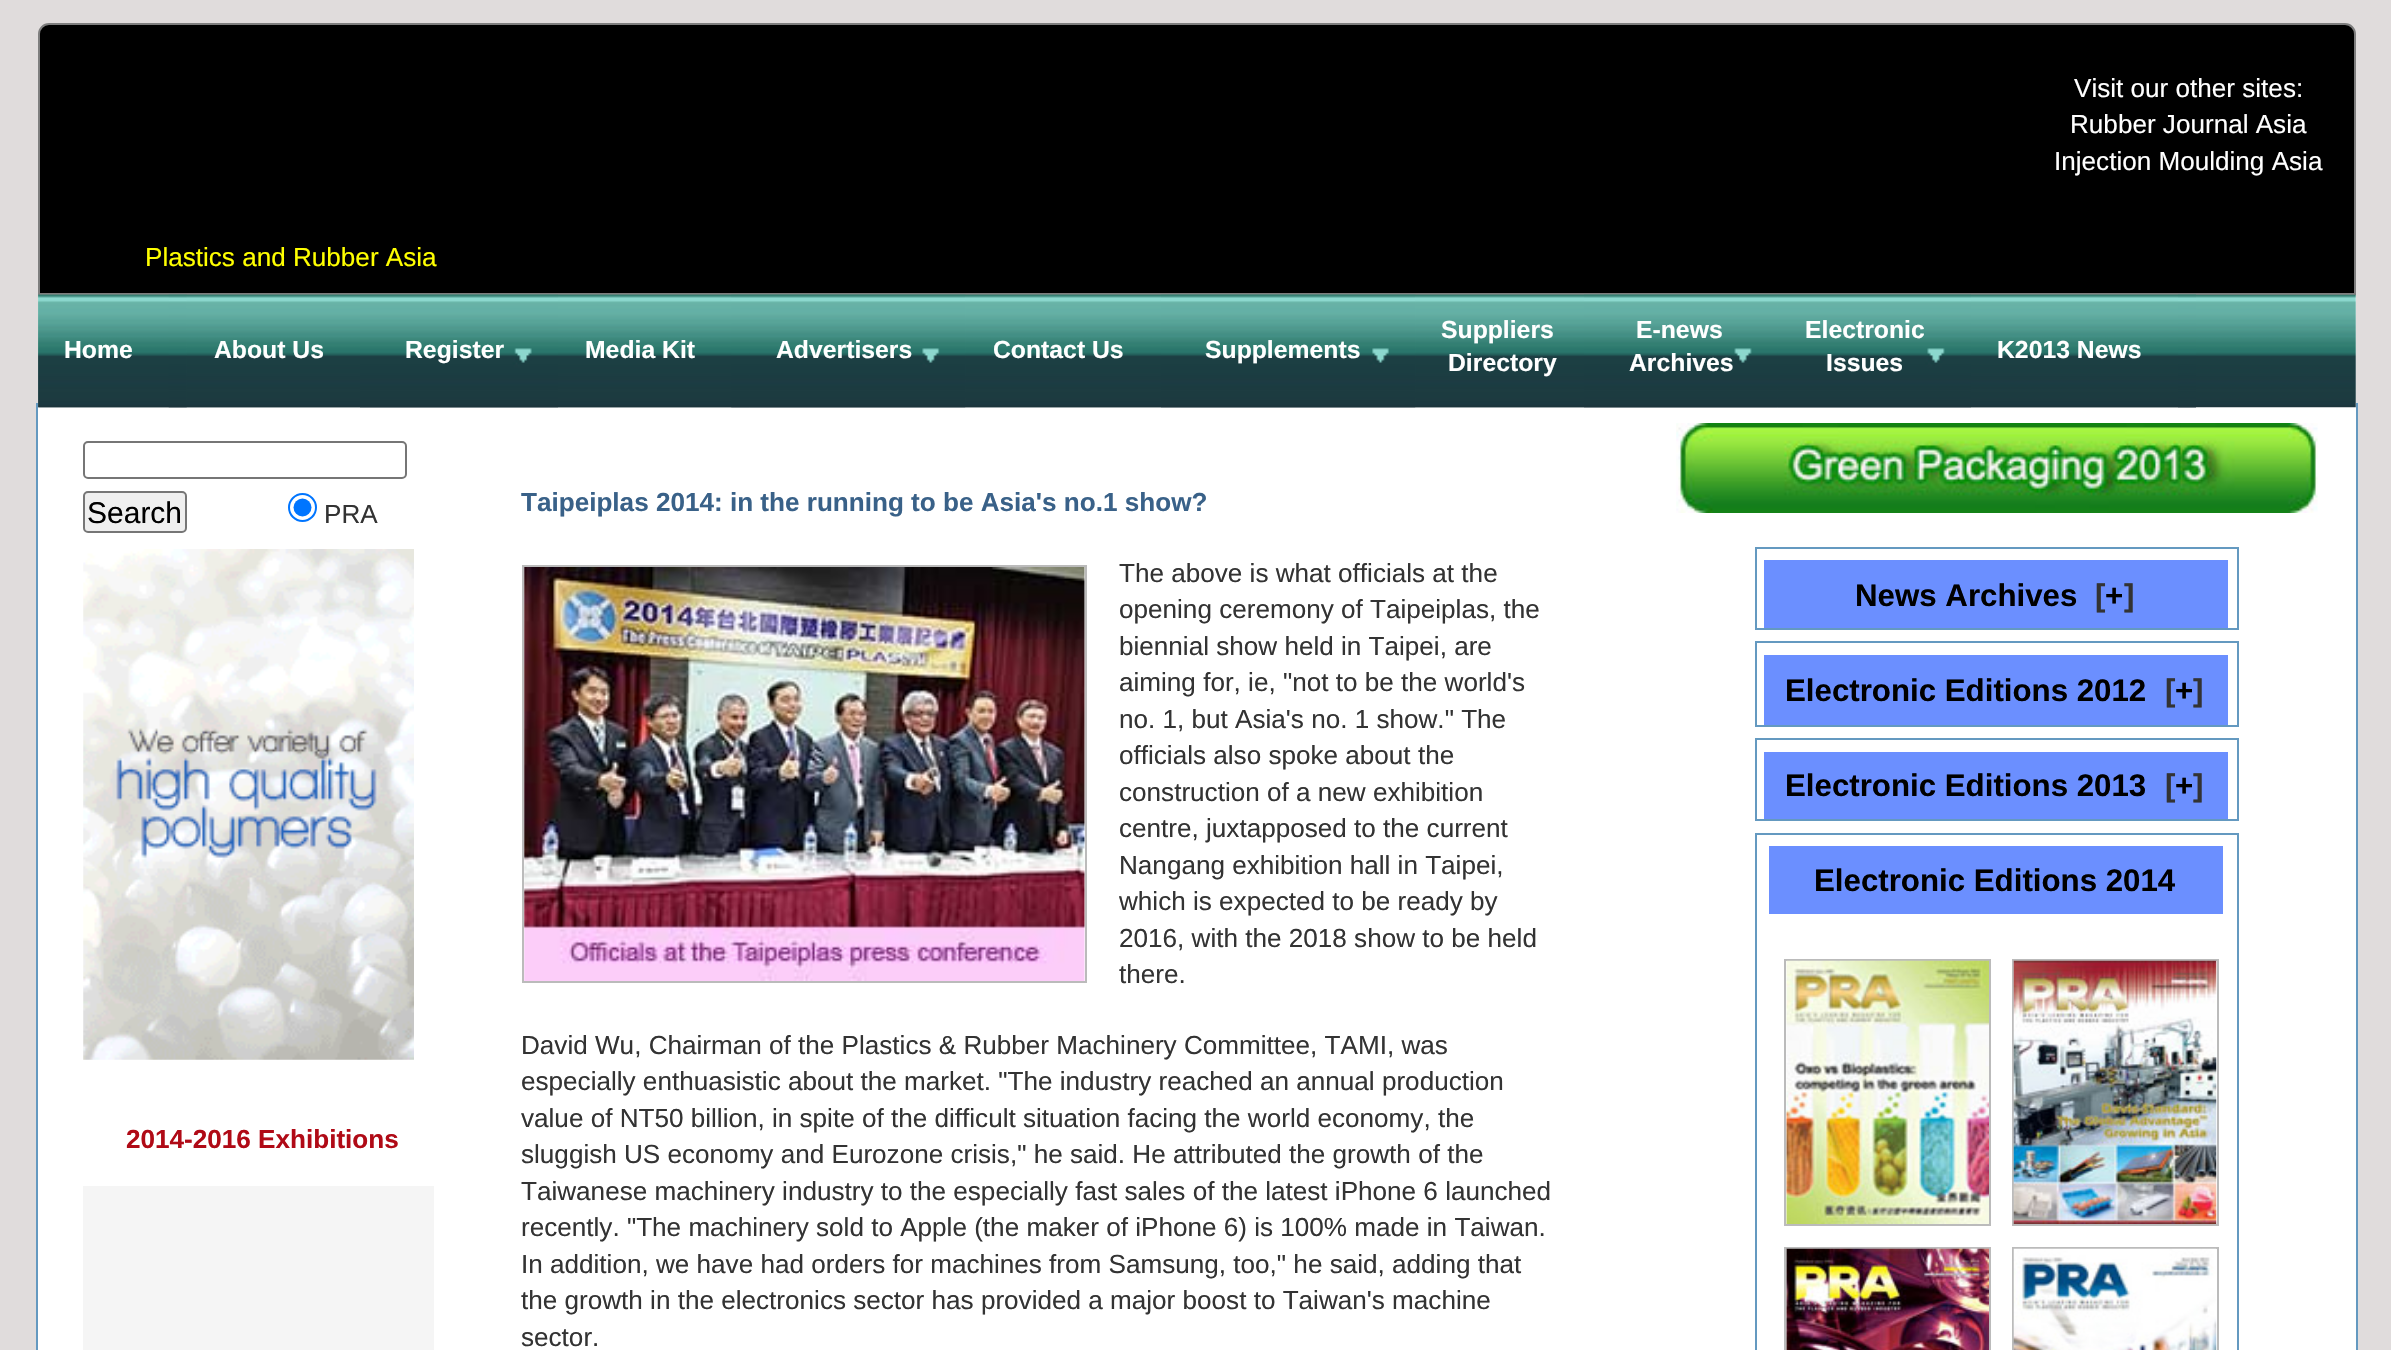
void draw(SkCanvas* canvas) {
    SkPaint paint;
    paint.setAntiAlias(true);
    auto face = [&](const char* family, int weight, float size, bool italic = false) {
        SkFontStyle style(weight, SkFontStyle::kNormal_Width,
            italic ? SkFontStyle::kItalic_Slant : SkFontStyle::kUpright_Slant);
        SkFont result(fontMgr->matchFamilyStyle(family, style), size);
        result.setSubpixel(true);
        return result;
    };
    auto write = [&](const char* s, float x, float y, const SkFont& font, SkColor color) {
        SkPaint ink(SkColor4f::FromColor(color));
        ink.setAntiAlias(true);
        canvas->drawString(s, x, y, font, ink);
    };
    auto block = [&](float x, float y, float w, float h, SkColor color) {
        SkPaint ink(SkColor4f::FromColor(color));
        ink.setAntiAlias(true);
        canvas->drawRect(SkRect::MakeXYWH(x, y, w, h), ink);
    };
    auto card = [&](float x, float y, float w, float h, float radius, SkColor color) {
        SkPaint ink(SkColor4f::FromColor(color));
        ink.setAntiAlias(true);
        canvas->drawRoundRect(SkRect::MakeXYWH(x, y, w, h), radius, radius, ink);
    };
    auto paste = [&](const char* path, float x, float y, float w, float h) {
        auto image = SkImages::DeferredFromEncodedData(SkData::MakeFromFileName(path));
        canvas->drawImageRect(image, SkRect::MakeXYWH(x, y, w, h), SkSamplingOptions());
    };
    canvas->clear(SkColorSetRGB(224, 220, 220));
    card(38, 23, 2318, 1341, 14, SK_ColorWHITE);
    paint.setColor(SK_ColorBLACK);
    canvas->drawPath(SkPathBuilder().moveTo(49, 24).lineTo(2345, 24).cubicTo(2350.5f, 24, 2355, 28.5f, 2355, 34).lineTo(2355, 294).lineTo(39, 294).lineTo(39, 34).cubicTo(39, 28.5f, 43.5f, 24, 49, 24).close().detach(), paint);
    paint.setStyle(SkPaint::kStroke_Style);
    paint.setStrokeWidth(2);
    paint.setColor(SkColorSetRGB(126, 126, 126));
    canvas->drawPath(SkPathBuilder().moveTo(49, 24).lineTo(2345, 24).cubicTo(2350.5f, 24, 2355, 28.5f, 2355, 34).lineTo(2355, 294).lineTo(39, 294).lineTo(39, 34).cubicTo(39, 28.5f, 43.5f, 24, 49, 24).close().detach(), paint);
    auto kFont1 = face("Liberation Sans", 400, 26.1f);
    write("Visit our other sites:", 2074, 97, kFont1, SK_ColorWHITE);
    write("Rubber Journal Asia", 2070, 133, kFont1, SK_ColorWHITE);
    write("Injection Moulding Asia", 2054, 170, kFont1, SK_ColorWHITE);
    write("Plastics and Rubber Asia", 145, 266, kFont1, SkColorSetRGB(255, 255, 0));
    paint.setColor(SkColorSetRGB(118, 118, 118));
    canvas->drawRoundRect(SkRect::MakeXYWH(84, 442, 322, 36), 4, 4, paint);
    paint.setColor(SkColorSetRGB(0, 117, 255));
    canvas->drawCircle(302.5f, 507.5f, 13.5f, paint);
    paint.setStyle(SkPaint::kFill_Style);
    canvas->drawCircle(302.5f, 507.5f, 9, paint);
    paste("pic21.png", 83, 549, 331, 511);
    paint.setStyle(SkPaint::kStroke_Style);
    paint.setColor(SkColorSetRGB(187, 187, 187));
    canvas->drawRect(SkRect::MakeXYWH(523, 566, 563, 416), paint);
    paste("pic22.png", 524, 567, 561, 414);
    paste("pic23.png", 1676, 423, 642, 90);
    paint.setColor(SkColorSetRGB(100, 153, 192));
    canvas->drawRect(SkRect::MakeXYWH(1756, 548, 482, 81), paint);
    block(1764, 560, 464, 68, SkColorSetRGB(107, 143, 255));
    canvas->drawRect(SkRect::MakeXYWH(1756, 642, 482, 84), paint);
    block(1764, 655, 464, 70, SkColorSetRGB(107, 143, 255));
    canvas->drawRect(SkRect::MakeXYWH(1756, 739, 482, 81), paint);
    block(1764, 752, 464, 67, SkColorSetRGB(107, 143, 255));
    canvas->drawRect(SkRect::MakeXYWH(1756, 834, 482, 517), paint);
    block(1769, 846, 454, 68, SkColorSetRGB(107, 143, 255));
    paint.setColor(SkColorSetRGB(187, 187, 187));
    canvas->drawRect(SkRect::MakeXYWH(1785, 960, 205, 265), paint);
    canvas->drawRect(SkRect::MakeXYWH(2013, 960, 205, 265), paint);
    paste("pic24.png", 1786, 960, 203, 264);
    paste("pic25.png", 2013, 960, 204, 264);
    canvas->drawRect(SkRect::MakeXYWH(1785, 1248, 205, 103), paint);
    canvas->drawRect(SkRect::MakeXYWH(2013, 1248, 205, 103), paint);
    paste("pic26.png", 1786, 1248, 203, 102);
    paste("pic27.png", 2013, 1248, 204, 102);
    paint.setColor(SkColorSetRGB(100, 153, 192));
    canvas->drawRect(SkRect::MakeXYWH(37, 404, 2320, 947), paint);
    block(38, 403, 2318, 2, SK_ColorWHITE);
    paste("pic1.png", 38, 294, 2318, 114);
    paste("pic2.png", 38, 294, 149, 114);
    paste("pic3.png", 168, 294, 19, 114);
    auto kFont2 = face("Liberation Sans", 700, 24.75f);
    write("Home", 64, 358, kFont2, SK_ColorWHITE);
    paste("pic4.png", 186, 294, 192, 114);
    paste("pic5.png", 360, 294, 18, 114);
    write("About Us", 214, 358, kFont2, SK_ColorWHITE);
    paste("pic6.png", 378, 294, 180, 114);
    paste("pic7.png", 378, 294, 180, 114);
    write("Register", 405, 358, kFont2, SK_ColorWHITE);
    paste("pic8.png", 558, 294, 192, 114);
    paste("pic9.png", 731, 294, 19, 114);
    write("Media Kit", 585, 358, kFont2, SK_ColorWHITE);
    paste("pic10.png", 749, 294, 217, 114);
    paste("pic11.png", 749, 294, 217, 114);
    write("Advertisers", 776, 358, kFont2, SK_ColorWHITE);
    paste("pic12.png", 965, 294, 214, 114);
    paste("pic5.png", 1161, 294, 18, 114);
    write("Contact Us", 993, 358, kFont2, SK_ColorWHITE);
    paste("pic13.png", 1179, 294, 237, 114);
    paste("pic14.png", 1179, 294, 237, 114);
    write("Supplements", 1205, 358, kFont2, SK_ColorWHITE);
    paste("pic15.png", 1415, 294, 187, 114);
    paste("pic5.png", 1584, 294, 18, 114);
    write("Suppliers", 1441, 338, kFont2, SK_ColorWHITE);
    write("Directory", 1448, 371, kFont2, SK_ColorWHITE);
    paste("pic16.png", 1602, 294, 176, 114);
    paste("pic17.png", 1602, 294, 176, 114);
    write("E-news", 1636, 338, kFont2, SK_ColorWHITE);
    write("Archives", 1629, 371, kFont2, SK_ColorWHITE);
    paste("pic18.png", 1777, 294, 194, 114);
    paste("pic19.png", 1777, 294, 194, 114);
    write("Electronic", 1805, 338, kFont2, SK_ColorWHITE);
    write("Issues", 1826, 371, kFont2, SK_ColorWHITE);
    paste("pic20.png", 1971, 294, 225, 114);
    paste("pic5.png", 2178, 294, 18, 114);
    write("K2013 News", 1997, 358, kFont2, SK_ColorWHITE);
    paint.setStyle(SkPaint::kFill_Style);
    paint.setColor(SkColorSetRGB(239, 239, 239));
    canvas->drawRoundRect(SkRect::MakeXYWH(84, 492, 102, 40), 4, 4, paint);
    paint.setStyle(SkPaint::kStroke_Style);
    paint.setColor(SkColorSetRGB(118, 118, 118));
    canvas->drawRoundRect(SkRect::MakeXYWH(84, 492, 102, 40), 4, 4, paint);
    auto kFont3 = face("Liberation Sans", 400, 30);
    write("Search", 87, 523, kFont3, SK_ColorBLACK);
    write("PRA", 324, 523, kFont1, SkColorSetRGB(51, 51, 51));
    auto kFont4 = face("Liberation Sans", 700, 26.1f);
    write("2014-2016 Exhibitions", 126, 1148, kFont4, SkColorSetRGB(176, 10, 22));
    block(83, 1186, 351, 164, SkColorSetRGB(245, 245, 245));
    write("Taipeiplas 2014: in the running to be Asia's no.1 show?", 521, 511, kFont4, SkColorSetRGB(57, 97, 136));
    write("The above is what officials at the", 1119, 582, kFont1, SkColorSetRGB(51, 51, 51));
    write("opening ceremony of Taipeiplas, the", 1119, 618, kFont1, SkColorSetRGB(51, 51, 51));
    write("biennial show held in Taipei, are", 1119, 655, kFont1, SkColorSetRGB(51, 51, 51));
    write("aiming for, ie, \"not to be the world's", 1119, 691, kFont1, SkColorSetRGB(51, 51, 51));
    write("no. 1, but Asia's no. 1 show.\" The", 1119, 728, kFont1, SkColorSetRGB(51, 51, 51));
    write("officials also spoke about the", 1119, 764, kFont1, SkColorSetRGB(51, 51, 51));
    write("construction of a new exhibition", 1119, 801, kFont1, SkColorSetRGB(51, 51, 51));
    write("centre, juxtapposed to the current", 1119, 837, kFont1, SkColorSetRGB(51, 51, 51));
    write("Nangang exhibition hall in Taipei,", 1119, 874, kFont1, SkColorSetRGB(51, 51, 51));
    write("which is expected to be ready by", 1119, 910, kFont1, SkColorSetRGB(51, 51, 51));
    write("2016, with the 2018 show to be held", 1119, 947, kFont1, SkColorSetRGB(51, 51, 51));
    write("there.", 1119, 983, kFont1, SkColorSetRGB(51, 51, 51));
    write("David Wu, Chairman of the Plastics & Rubber Machinery Committee, TAMI, was", 521, 1054, kFont1, SkColorSetRGB(51, 51, 51));
    write("especially enthuasistic about the market. \"The industry reached an annual production", 521, 1090, kFont1, SkColorSetRGB(51, 51, 51));
    write("value of NT50 billion, in spite of the difficult situation facing the world economy, the", 521, 1127, kFont1, SkColorSetRGB(51, 51, 51));
    write("sluggish US economy and Eurozone crisis,\" he said. He attributed the growth of the", 521, 1163, kFont1, SkColorSetRGB(51, 51, 51));
    write("Taiwanese machinery industry to the especially fast sales of the latest iPhone 6 launched", 521, 1200, kFont1, SkColorSetRGB(51, 51, 51));
    write("recently. \"The machinery sold to Apple (the maker of iPhone 6) is 100% made in Taiwan.", 521, 1236, kFont1, SkColorSetRGB(51, 51, 51));
    write("In addition, we have had orders for machines from Samsung, too,\" he said, adding that", 521, 1273, kFont1, SkColorSetRGB(51, 51, 51));
    write("the growth in the electronics sector has provided a major boost to Taiwan's machine", 521, 1309, kFont1, SkColorSetRGB(51, 51, 51));
    write("sector.", 521, 1346, kFont1, SkColorSetRGB(51, 51, 51));
    auto kFont5 = face("Liberation Sans", 700, 31.25f);
    write("News Archives", 1855, 606, kFont5, SK_ColorBLACK);
    write("[", 2095, 606, kFont5, SkColorSetRGB(51, 51, 51));
    write("+", 2105, 606, kFont5, SK_ColorBLACK);
    write("]", 2124, 606, kFont5, SkColorSetRGB(51, 51, 51));
    write("Electronic Editions 2012", 1785, 701, kFont5, SK_ColorBLACK);
    write("[", 2165, 701, kFont5, SkColorSetRGB(51, 51, 51));
    write("+", 2175, 701, kFont5, SK_ColorBLACK);
    write("]", 2193, 701, kFont5, SkColorSetRGB(51, 51, 51));
    write("Electronic Editions 2013", 1785, 796, kFont5, SK_ColorBLACK);
    write("[", 2165, 796, kFont5, SkColorSetRGB(51, 51, 51));
    write("+", 2175, 796, kFont5, SK_ColorBLACK);
    write("]", 2193, 796, kFont5, SkColorSetRGB(51, 51, 51));
    write("Electronic Editions 2014", 1814, 891, kFont5, SK_ColorBLACK);
}
